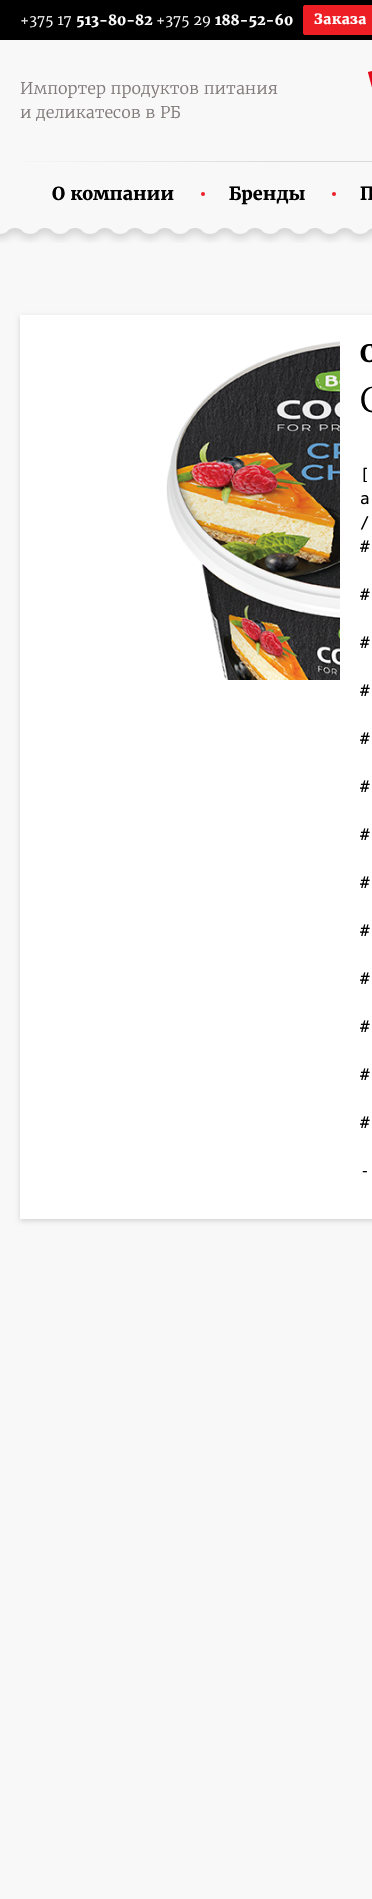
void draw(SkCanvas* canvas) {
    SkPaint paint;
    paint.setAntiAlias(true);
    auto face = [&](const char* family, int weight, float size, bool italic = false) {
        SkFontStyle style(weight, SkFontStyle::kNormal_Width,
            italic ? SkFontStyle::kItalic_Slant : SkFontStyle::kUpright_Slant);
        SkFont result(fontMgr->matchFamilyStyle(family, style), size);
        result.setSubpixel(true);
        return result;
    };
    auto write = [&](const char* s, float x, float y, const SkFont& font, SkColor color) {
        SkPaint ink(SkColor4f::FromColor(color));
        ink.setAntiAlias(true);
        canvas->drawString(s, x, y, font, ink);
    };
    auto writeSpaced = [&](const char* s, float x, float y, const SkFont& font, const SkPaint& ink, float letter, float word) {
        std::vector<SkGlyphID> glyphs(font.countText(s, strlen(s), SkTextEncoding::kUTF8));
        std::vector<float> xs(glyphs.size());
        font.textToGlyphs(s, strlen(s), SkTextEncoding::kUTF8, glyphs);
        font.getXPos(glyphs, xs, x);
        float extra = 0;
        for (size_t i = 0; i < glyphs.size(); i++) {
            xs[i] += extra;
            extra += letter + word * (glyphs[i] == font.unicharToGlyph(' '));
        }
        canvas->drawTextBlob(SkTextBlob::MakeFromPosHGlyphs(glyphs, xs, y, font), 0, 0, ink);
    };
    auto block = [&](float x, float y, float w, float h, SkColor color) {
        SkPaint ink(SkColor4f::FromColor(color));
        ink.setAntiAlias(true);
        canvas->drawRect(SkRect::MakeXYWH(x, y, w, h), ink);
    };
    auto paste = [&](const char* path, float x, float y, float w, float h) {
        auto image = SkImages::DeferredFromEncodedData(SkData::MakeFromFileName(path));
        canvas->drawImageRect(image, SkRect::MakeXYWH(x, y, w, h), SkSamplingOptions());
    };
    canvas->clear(SkColorSetRGB(248, 248, 248));
    block(0, 0, 372, 40, SK_ColorBLACK);
    auto kFont1 = face("Merriweather", 300, 14);
    write("+375 17", 20, 25, kFont1, SK_ColorWHITE);
    auto kFont2 = face("Merriweather", 700, 14);
    write("513-80-82", 76, 25, kFont2, SK_ColorWHITE);
    write("+375 29", 156, 25, kFont1, SK_ColorWHITE);
    write("188-52-60", 215, 25, kFont2, SK_ColorWHITE);
    paint.setColor(SkColorSetRGB(237, 31, 36));
    canvas->drawRoundRect(SkRect::MakeXYWH(303.5f, 5.5f, 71, 29), 1.5f, 1.5f, paint);
    paint.setStyle(SkPaint::kStroke_Style);
    paint.setStrokeWidth(1);
    canvas->drawRoundRect(SkRect::MakeXYWH(303.5f, 5.5f, 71, 29), 1.5f, 1.5f, paint);
    paint.setStyle(SkPaint::kFill_Style);
    paint.setColor(SK_ColorWHITE);
    writeSpaced("Заказа", 314, 24, kFont2, paint, 0.5f, 0);
    paste("pic1.png", 367, 71, 5, 17);
    auto kFont3 = face("Merriweather", 300, 16);
    write("Импортер продуктов питания", 20, 94, kFont3, SkColorSetRGB(130, 122, 122));
    write("и деликатесов в РБ", 20, 118, kFont3, SkColorSetRGB(130, 122, 122));
    {
        const SkColor colors[] = {SkColorSetRGB(248, 248, 248), SkColorSetRGB(217, 217, 217), SkColorSetRGB(217, 217, 217), SkColorSetRGB(248, 248, 248)};
        const float stops[] = {0, 0.3f, 0.7f, 1};
        const SkPoint ends[] = {{0, 162}, {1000, 161}};
        paint.setShader(SkGradientShader::MakeLinear(ends, colors, stops, 4, SkTileMode::kClamp));
        paint.setAlpha(255);
    }
    canvas->drawRect(SkRect::MakeXYWH(24, 161, 348, 1), paint);
    auto kFont4 = face("Merriweather", 700, 18);
    write("О компании", 52, 200, kFont4, SK_ColorBLACK);
    paint.setShader(nullptr);
    paint.setColor(SkColorSetRGB(237, 31, 36));
    canvas->drawCircle(203, 194, 2, paint);
    write("Бренды", 229, 200, kFont4, SK_ColorBLACK);
    canvas->drawCircle(334, 194, 2, paint);
    write("П", 360, 200, kFont4, SK_ColorBLACK);
    paste("pic2.png", 0, 228, 372, 15);
    paint.setColor(SkColorSetARGB(38, 0, 0, 0));
    paint.setMaskFilter(SkMaskFilter::MakeBlur(kNormal_SkBlurStyle, 2.5f));
    canvas->drawRect(SkRect::MakeXYWH(20, 317, 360, 904), paint);
    paint.setMaskFilter(nullptr);
    block(20, 315, 352, 904, SK_ColorWHITE);
    paste("pic3.png", 166, 341, 174, 339);
    auto kFont5 = face("Merriweather", 700, 24);
    write("C", 360, 362, kFont5, SK_ColorBLACK);
    auto kFont6 = face("Merriweather", 300, 34);
    write("С", 360, 412, kFont6, SK_ColorBLACK);
    auto kFont7 = face("DejaVu Sans Mono", 400, 16);
    write("[", 360, 480, kFont7, SK_ColorBLACK);
    write("a", 360, 504, kFont7, SK_ColorBLACK);
    write("/", 360, 528, kFont7, SK_ColorBLACK);
    write("#", 360, 552, kFont7, SK_ColorBLACK);
    write("#", 360, 600, kFont7, SK_ColorBLACK);
    write("#", 360, 648, kFont7, SK_ColorBLACK);
    write("#", 360, 696, kFont7, SK_ColorBLACK);
    write("#", 360, 744, kFont7, SK_ColorBLACK);
    write("#", 360, 792, kFont7, SK_ColorBLACK);
    write("#", 360, 840, kFont7, SK_ColorBLACK);
    write("#", 360, 888, kFont7, SK_ColorBLACK);
    write("#", 360, 936, kFont7, SK_ColorBLACK);
    write("#", 360, 984, kFont7, SK_ColorBLACK);
    write("#", 360, 1032, kFont7, SK_ColorBLACK);
    write("#", 360, 1080, kFont7, SK_ColorBLACK);
    write("#", 360, 1128, kFont7, SK_ColorBLACK);
    write("-", 360, 1176, kFont7, SK_ColorBLACK);
}
